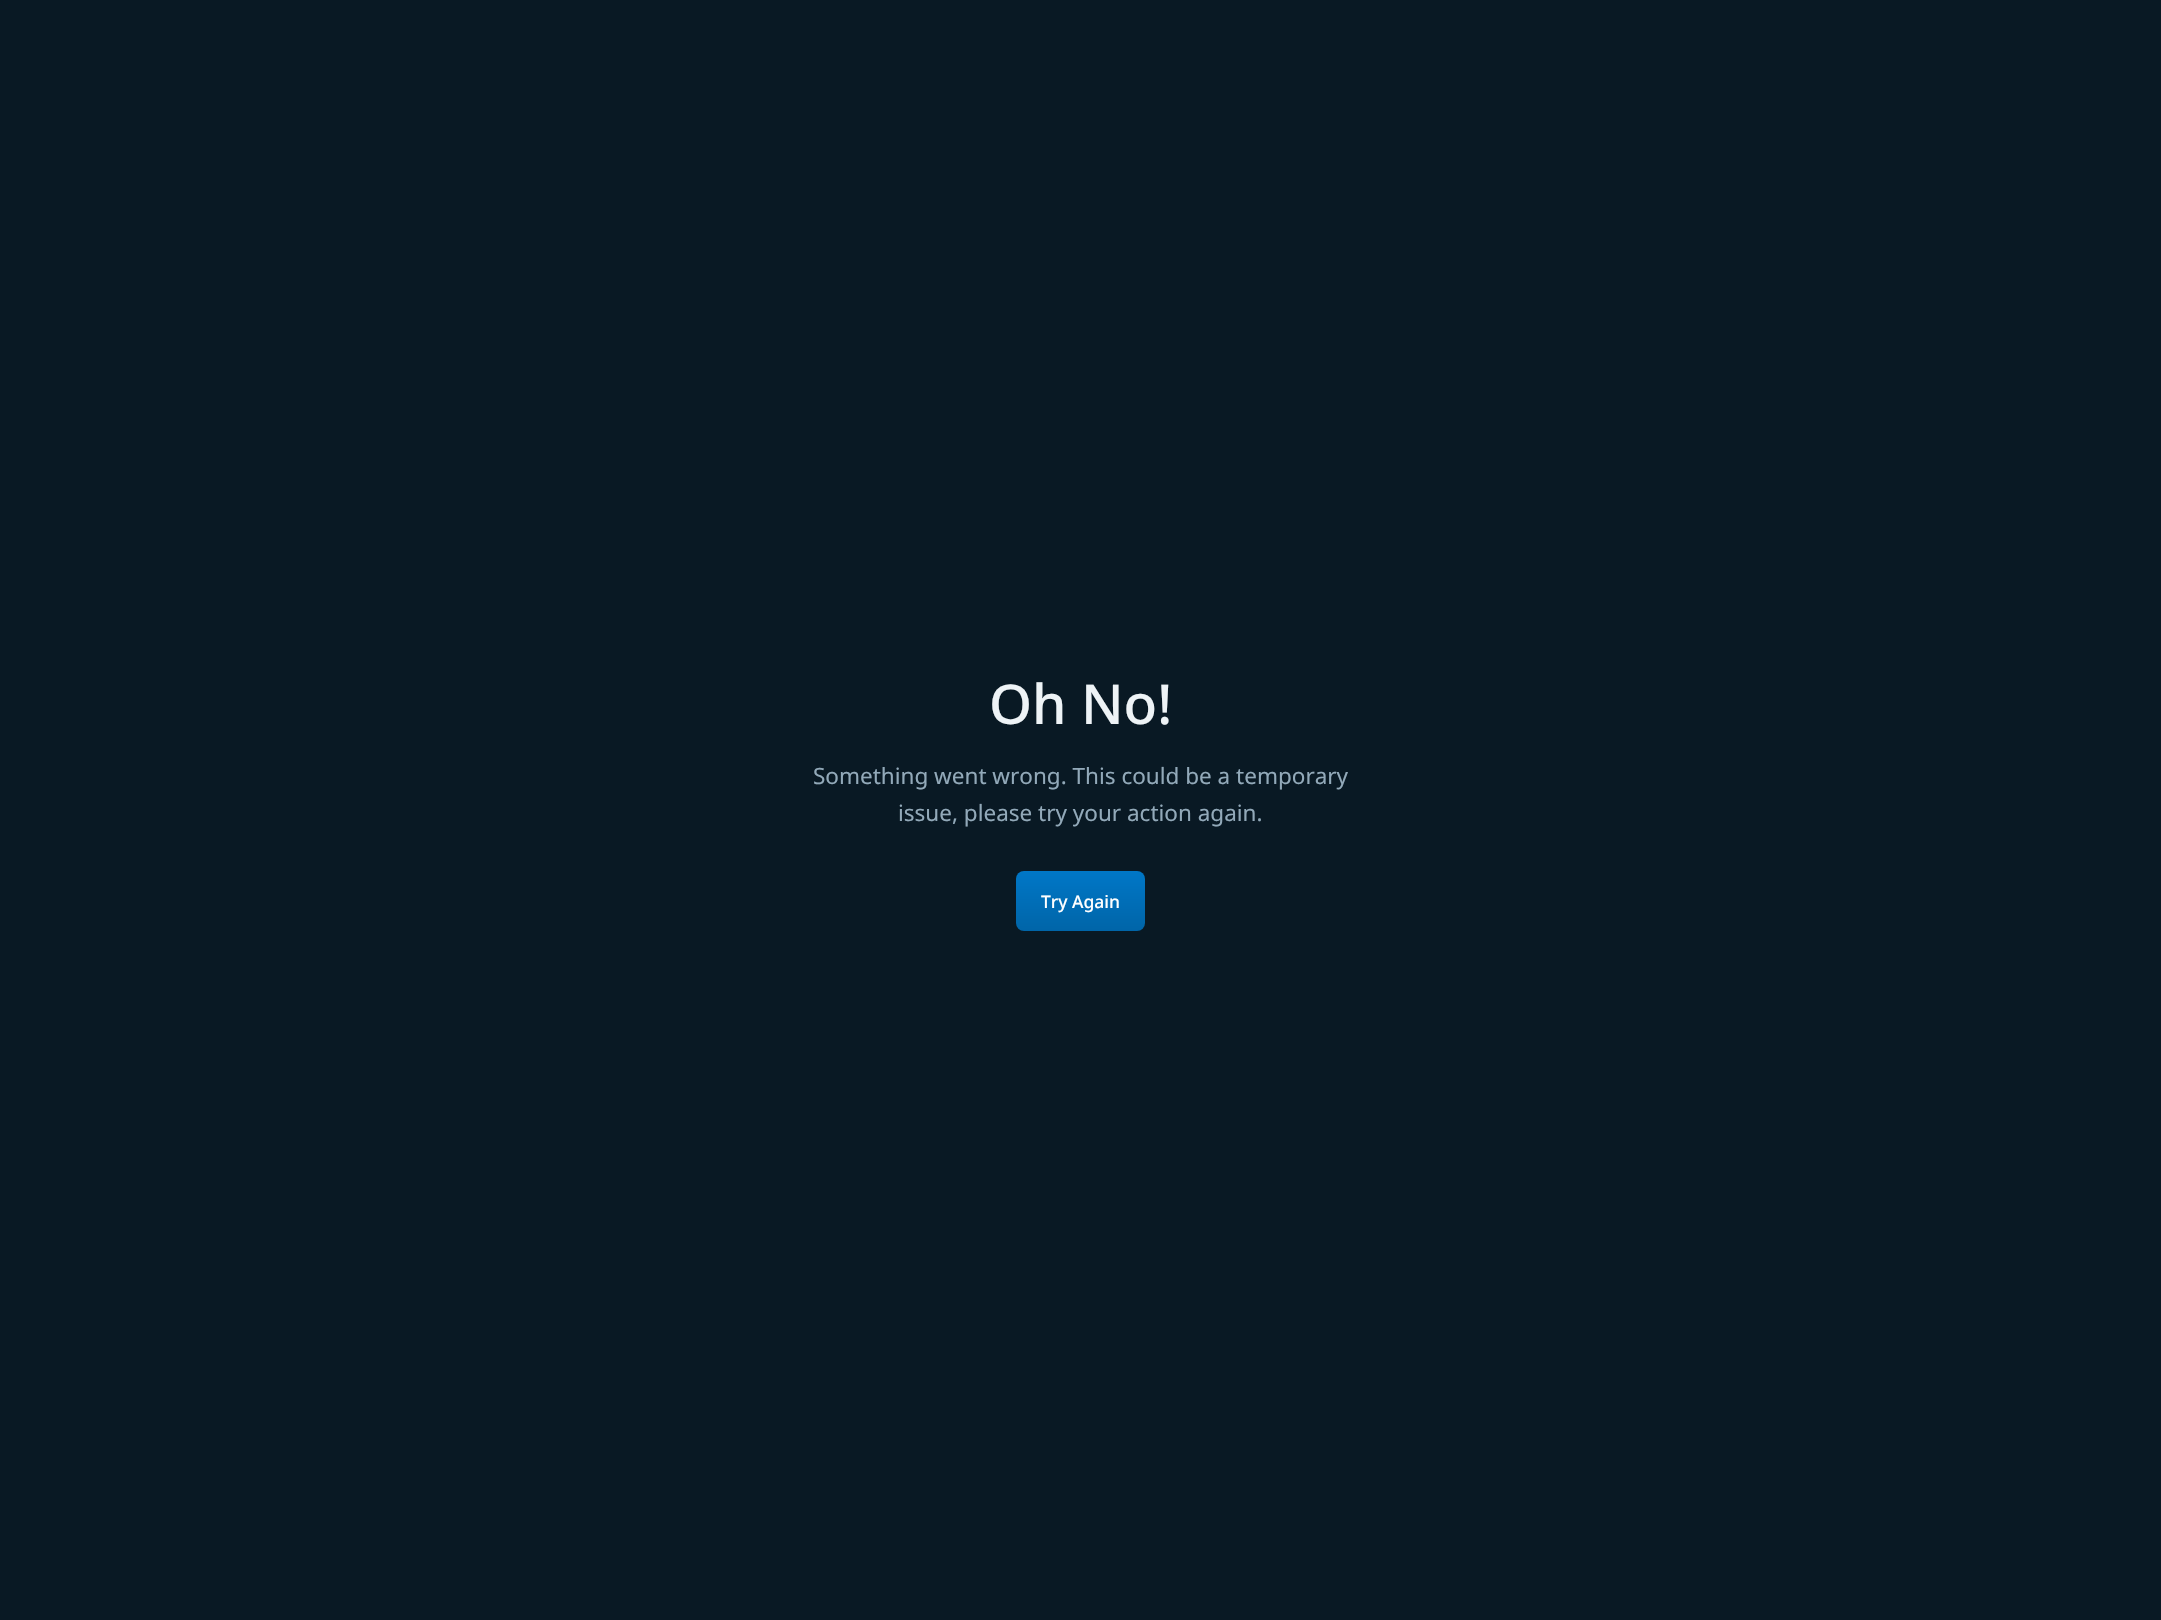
void draw(SkCanvas* canvas) {
    SkPaint paint;
    paint.setAntiAlias(true);
    auto face = [&](const char* family, int weight, float size, bool italic = false) {
        SkFontStyle style(weight, SkFontStyle::kNormal_Width,
            italic ? SkFontStyle::kItalic_Slant : SkFontStyle::kUpright_Slant);
        SkFont result(fontMgr->matchFamilyStyle(family, style), size);
        result.setSubpixel(true);
        return result;
    };
    auto write = [&](const char* s, float x, float y, const SkFont& font, SkColor color) {
        SkPaint ink(SkColor4f::FromColor(color));
        ink.setAntiAlias(true);
        canvas->drawString(s, x, y, font, ink);
    };
    canvas->clear(SkColorSetRGB(9, 25, 36));
    auto kFont1 = face("Noto Sans", 500, 55);
    write("Oh No!", 989, 724, kFont1, SkColorSetRGB(238, 243, 246));
    auto kFont2 = face("Noto Sans", 400, 22.5f);
    write("Something went wrong. This could be a temporary", 813, 784, kFont2, SkColorSetRGB(146, 169, 185));
    write("issue, please try your action again.", 898, 821, kFont2, SkColorSetRGB(146, 169, 185));
    {
        const SkColor colors[] = {SkColorSetRGB(0, 119, 199), SkColorSetRGB(0, 101, 168)};
        const float stops[] = {0, 1};
        const SkPoint ends[] = {{1081, 871}, {1081, 931}};
        paint.setShader(SkGradientShader::MakeLinear(ends, colors, stops, 2, SkTileMode::kClamp));
        paint.setAlpha(255);
    }
    canvas->drawRoundRect(SkRect::MakeXYWH(1016, 871, 129, 60), 8, 8, paint);
    auto kFont3 = face("Noto Sans", 500, 17.5f);
    write("Try Again", 1041, 908, kFont3, SK_ColorWHITE);
}
